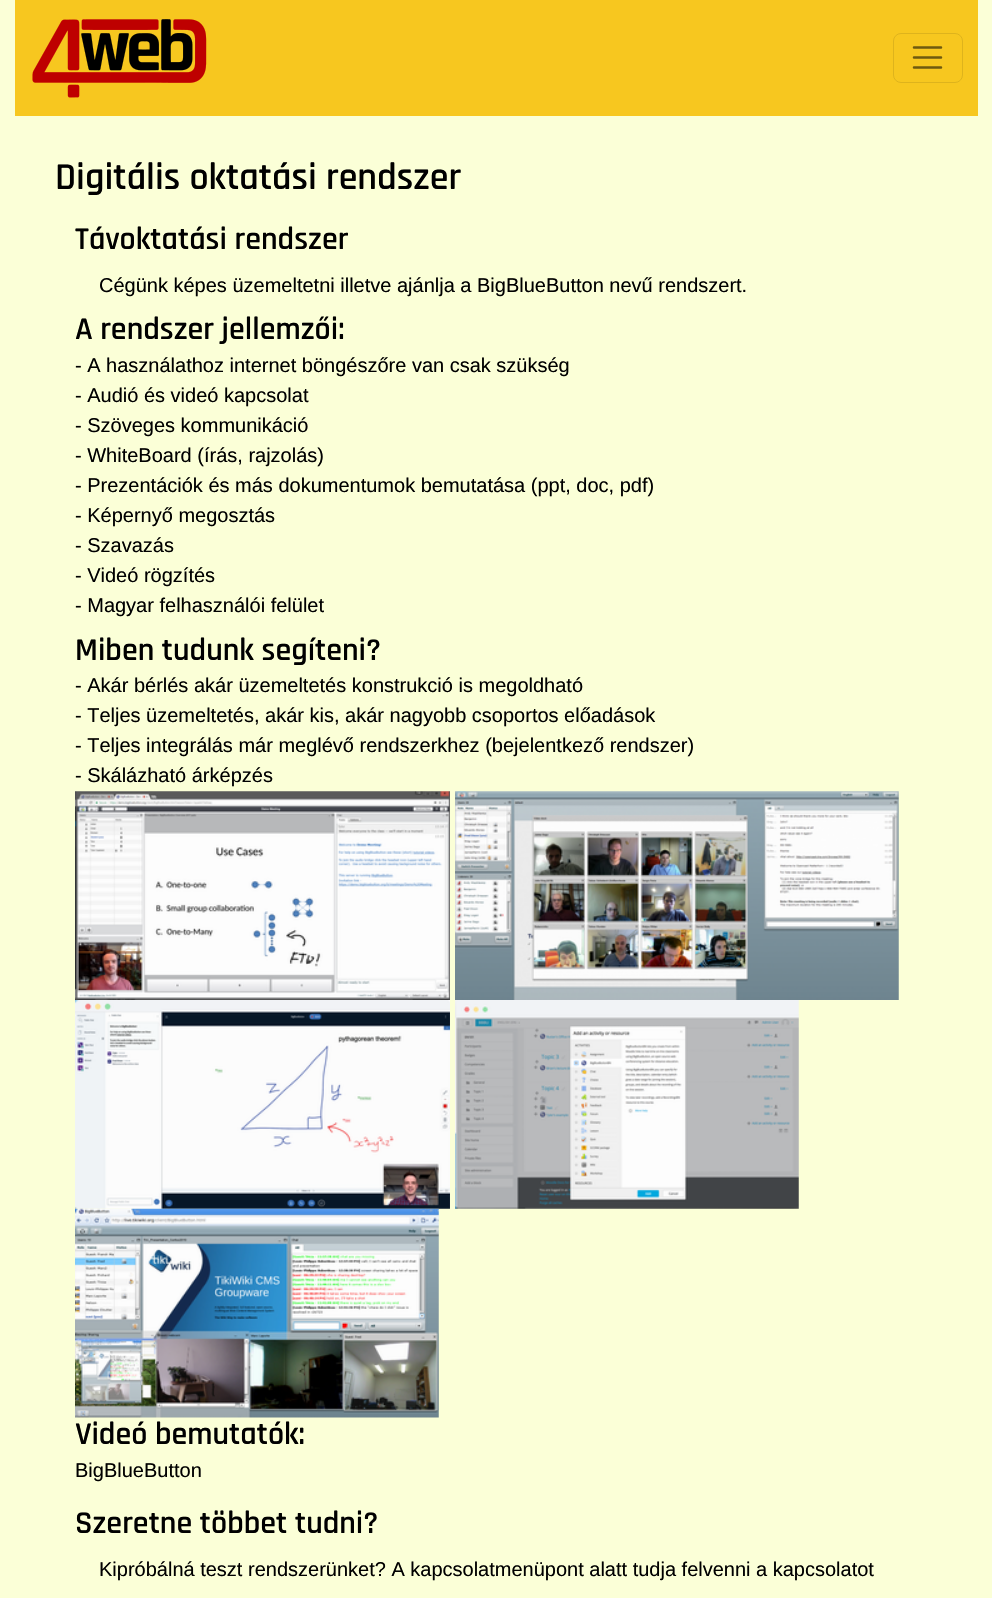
void draw(SkCanvas* canvas) {
    SkPaint paint;
    paint.setAntiAlias(true);
    auto face = [&](const char* family, int weight, float size, bool italic = false) {
        SkFontStyle style(weight, SkFontStyle::kNormal_Width,
            italic ? SkFontStyle::kItalic_Slant : SkFontStyle::kUpright_Slant);
        SkFont result(fontMgr->matchFamilyStyle(family, style), size);
        result.setSubpixel(true);
        return result;
    };
    auto write = [&](const char* s, float x, float y, const SkFont& font, SkColor color) {
        SkPaint ink(SkColor4f::FromColor(color));
        ink.setAntiAlias(true);
        canvas->drawString(s, x, y, font, ink);
    };
    auto block = [&](float x, float y, float w, float h, SkColor color) {
        SkPaint ink(SkColor4f::FromColor(color));
        ink.setAntiAlias(true);
        canvas->drawRect(SkRect::MakeXYWH(x, y, w, h), ink);
    };
    auto paste = [&](const char* path, float x, float y, float w, float h) {
        auto image = SkImages::DeferredFromEncodedData(SkData::MakeFromFileName(path));
        canvas->drawImageRect(image, SkRect::MakeXYWH(x, y, w, h), SkSamplingOptions());
    };
    canvas->clear(SkColorSetRGB(251, 255, 215));
    block(15, 0, 963, 116, SkColorSetRGB(247, 199, 31));
    paste("pic1.png", 32, 19, 175, 79);
    paint.setStyle(SkPaint::kStroke_Style);
    paint.setStrokeWidth(1);
    paint.setColor(SkColorSetRGB(222, 179, 28));
    canvas->drawRoundRect(SkRect::MakeXYWH(893.5f, 33.5f, 69, 49), 7.5f, 7.5f, paint);
    paint.setStrokeWidth(2.5f);
    paint.setStrokeCap(SkPaint::kRound_Cap);
    paint.setColor(SkColorSetRGB(111, 90, 14));
    canvas->drawPath(SkPathBuilder().moveTo(914, 47.5f).lineTo(941, 47.5f).moveTo(914, 57.5f).lineTo(941, 57.5f).moveTo(914, 67.5f).lineTo(941, 67.5f).detach(), paint);
    auto kFont1 = face("Rajdhani", 600, 38);
    write("Digitális oktatási rendszer", 55, 189, kFont1, SK_ColorBLACK);
    auto kFont2 = face("Rajdhani", 600, 32);
    write("Távoktatási rendszer", 75, 249, kFont2, SK_ColorBLACK);
    auto kFont3 = face("Liberation Sans", 400, 20);
    write("Cégünk képes üzemeltetni illetve ajánlja a BigBlueButton nevű rendszert.", 99, 292, kFont3, SK_ColorBLACK);
    write("A rendszer jellemzői:", 75, 339, kFont2, SK_ColorBLACK);
    write("- A használathoz internet böngészőre van csak szükség", 75, 372, kFont3, SK_ColorBLACK);
    write("- Audió és videó kapcsolat", 75, 402, kFont3, SK_ColorBLACK);
    write("- Szöveges kommunikáció", 75, 432, kFont3, SK_ColorBLACK);
    write("- WhiteBoard (írás, rajzolás)", 75, 462, kFont3, SK_ColorBLACK);
    write("- Prezentációk és más dokumentumok bemutatása (ppt, doc, pdf)", 75, 492, kFont3, SK_ColorBLACK);
    write("- Képernyő megosztás", 75, 522, kFont3, SK_ColorBLACK);
    write("- Szavazás", 75, 552, kFont3, SK_ColorBLACK);
    write("- Videó rögzítés", 75, 582, kFont3, SK_ColorBLACK);
    write("- Magyar felhasználói felület", 75, 612, kFont3, SK_ColorBLACK);
    write("Miben tudunk segíteni?", 75, 660, kFont2, SK_ColorBLACK);
    write("- Akár bérlés akár üzemeltetés konstrukció is megoldható", 75, 692, kFont3, SK_ColorBLACK);
    write("- Teljes üzemeltetés, akár kis, akár nagyobb csoportos előadások", 75, 722, kFont3, SK_ColorBLACK);
    write("- Teljes integrálás már meglévő rendszerkhez (bejelentkező rendszer)", 75, 752, kFont3, SK_ColorBLACK);
    write("- Skálázható árképzés", 75, 782, kFont3, SK_ColorBLACK);
    paste("pic2.png", 75, 791, 375, 209);
    paste("pic3.png", 455, 791, 444, 209);
    paste("pic4.png", 75, 1000, 375, 209);
    paste("pic5.png", 455, 1000, 344, 209);
    paste("pic6.png", 75, 1208, 364, 210);
    write("Videó bemutatók:", 75, 1444, kFont2, SK_ColorBLACK);
    write("BigBlueButton", 75, 1477, kFont3, SK_ColorBLACK);
    write("Szeretne többet tudni?", 75, 1533, kFont2, SK_ColorBLACK);
    write("Kipróbálná teszt rendszerünket? A kapcsolatmenüpont alatt tudja felvenni a kapcsolatot", 99, 1576, kFont3, SK_ColorBLACK);
}
